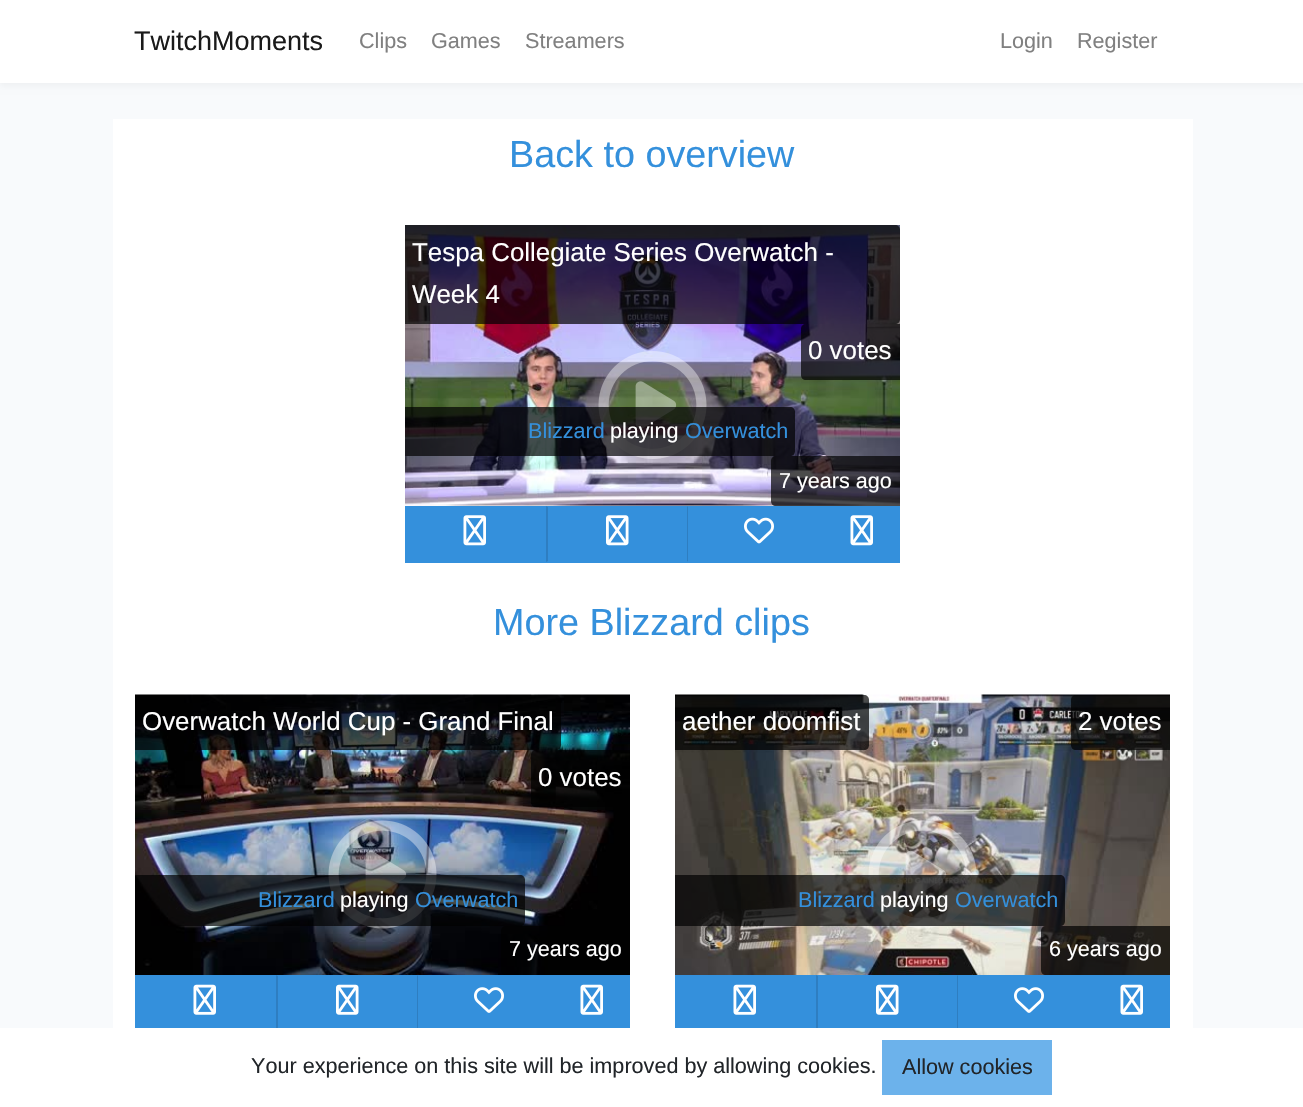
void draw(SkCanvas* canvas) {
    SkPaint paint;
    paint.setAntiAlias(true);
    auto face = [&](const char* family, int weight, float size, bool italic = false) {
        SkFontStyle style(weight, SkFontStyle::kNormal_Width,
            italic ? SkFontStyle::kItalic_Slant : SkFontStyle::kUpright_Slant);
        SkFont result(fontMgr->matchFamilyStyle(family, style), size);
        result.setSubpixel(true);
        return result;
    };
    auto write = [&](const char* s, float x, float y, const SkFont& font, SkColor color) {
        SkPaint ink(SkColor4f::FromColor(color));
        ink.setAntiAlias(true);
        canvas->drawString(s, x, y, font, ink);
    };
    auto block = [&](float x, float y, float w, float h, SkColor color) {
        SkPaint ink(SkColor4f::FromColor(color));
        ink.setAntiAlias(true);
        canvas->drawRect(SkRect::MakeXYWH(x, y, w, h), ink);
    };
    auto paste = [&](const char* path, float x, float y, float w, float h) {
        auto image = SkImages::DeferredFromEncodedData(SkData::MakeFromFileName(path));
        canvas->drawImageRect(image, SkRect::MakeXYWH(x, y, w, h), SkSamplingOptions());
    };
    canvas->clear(SkColorSetRGB(248, 250, 252));
    paint.setColor(SkColorSetARGB(10, 0, 0, 0));
    paint.setMaskFilter(SkMaskFilter::MakeBlur(kNormal_SkBlurStyle, 3));
    canvas->drawRect(SkRect::MakeXYWH(0, 3, 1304, 83), paint);
    paint.setMaskFilter(nullptr);
    block(0, 0, 1303, 83, SK_ColorWHITE);
    auto kFont1 = face("Liberation Sans", 400, 27);
    write("TwitchMoments", 134, 50, kFont1, SkColorSetRGB(26, 26, 26));
    auto kFont2 = face("Liberation Sans", 400, 21.6f);
    write("Clips", 359, 48, kFont2, SkColorSetRGB(128, 128, 128));
    write("Games", 431, 48, kFont2, SkColorSetRGB(128, 128, 128));
    write("Streamers", 525, 48, kFont2, SkColorSetRGB(128, 128, 128));
    write("Login", 1000, 48, kFont2, SkColorSetRGB(128, 128, 128));
    write("Register", 1077, 48, kFont2, SkColorSetRGB(128, 128, 128));
    block(113, 119, 1080, 909, SK_ColorWHITE);
    auto kFont3 = face("Liberation Sans", 400, 37.75f);
    write("Back to overview", 509, 167, kFont3, SkColorSetRGB(52, 144, 220));
    paste("pic1.png", 405, 225, 495, 281);
    paint.setColor(SkColorSetARGB(179, 0, 0, 0));
    canvas->drawPath(SkPathBuilder().moveTo(405, 225).lineTo(895, 225).cubicTo(898, 225, 900, 227, 900, 230).lineTo(900, 319).cubicTo(900, 322, 898, 324, 895, 324).lineTo(405, 324).close().detach(), paint);
    auto kFont4 = face("Liberation Sans", 400, 25.9f);
    write("Tespa Collegiate Series Overwatch -", 412, 261, kFont4, SK_ColorWHITE);
    write("Week 4", 412, 303, kFont4, SK_ColorWHITE);
    canvas->drawPath(SkPathBuilder().moveTo(806, 324).lineTo(900, 324).lineTo(900, 380).lineTo(806, 380).cubicTo(803, 380, 801, 378, 801, 375).lineTo(801, 329).cubicTo(801, 326, 803, 324, 806, 324).close().detach(), paint);
    write("0 votes", 808, 359, kFont4, SK_ColorWHITE);
    paste("pic2.png", 598, 351, 109, 108);
    canvas->drawPath(SkPathBuilder().moveTo(405, 407).lineTo(790, 407).cubicTo(793, 407, 795, 409, 795, 412).lineTo(795, 451).cubicTo(795, 454, 793, 456, 790, 456).lineTo(405, 456).close().detach(), paint);
    write("Blizzard", 528, 438, kFont2, SkColorSetRGB(52, 144, 220));
    write("playing", 610, 438, kFont2, SK_ColorWHITE);
    write("Overwatch", 685, 438, kFont2, SkColorSetRGB(52, 144, 220));
    canvas->drawPath(SkPathBuilder().moveTo(776, 456).lineTo(900, 456).lineTo(900, 506).lineTo(776, 506).cubicTo(773, 506, 771, 504, 771, 501).lineTo(771, 461).cubicTo(771, 458, 773, 456, 776, 456).close().detach(), paint);
    write("7 years ago", 779, 488, kFont2, SK_ColorWHITE);
    block(405, 506, 495, 57, SkColorSetRGB(52, 144, 220));
    paste("pic3.png", 463, 515, 23, 31);
    paint.setColor(SkColorSetRGB(46, 126, 193));
    canvas->drawPath(SkPathBuilder().moveTo(688, 506).lineTo(688, 562).lineTo(687, 561).lineTo(687, 507).close().detach(), paint);
    paint.setColor(SkColorSetRGB(52, 144, 220));
    canvas->drawPath(SkPathBuilder().moveTo(688, 562).lineTo(546, 562).lineTo(548, 561).lineTo(687, 561).close().detach(), paint);
    paint.setColor(SkColorSetRGB(46, 126, 193));
    canvas->drawPath(SkPathBuilder().moveTo(546, 562).lineTo(546, 506).lineTo(548, 507).lineTo(548, 561).close().detach(), paint);
    paste("pic4.png", 606, 515, 23, 31);
    paste("pic5.png", 744, 517, 30, 27);
    paste("pic3.png", 850, 515, 23, 31);
    write("More Blizzard clips", 493, 635, kFont3, SkColorSetRGB(52, 144, 220));
    paste("pic6.png", 135, 694, 495, 281);
    paint.setColor(SkColorSetARGB(179, 0, 0, 0));
    canvas->drawPath(SkPathBuilder().moveTo(135, 695).lineTo(556, 695).cubicTo(559, 695, 561, 697, 561, 700).lineTo(561, 745).cubicTo(561, 748, 559, 750, 556, 750).lineTo(135, 750).close().detach(), paint);
    write("Overwatch World Cup - Grand Final", 142, 730, kFont4, SK_ColorWHITE);
    canvas->drawPath(SkPathBuilder().moveTo(536, 750).lineTo(630, 750).lineTo(630, 807).lineTo(536, 807).cubicTo(533, 807, 531, 805, 531, 802).lineTo(531, 755).cubicTo(531, 752, 533, 750, 536, 750).close().detach(), paint);
    write("0 votes", 538, 786, kFont4, SK_ColorWHITE);
    paste("pic7.png", 328, 820, 109, 109);
    canvas->drawPath(SkPathBuilder().moveTo(135, 875).lineTo(520, 875).cubicTo(523, 875, 525, 877, 525, 880).lineTo(525, 921).cubicTo(525, 924, 523, 926, 520, 926).lineTo(135, 926).close().detach(), paint);
    write("Blizzard", 258, 907, kFont2, SkColorSetRGB(52, 144, 220));
    write("playing", 340, 907, kFont2, SK_ColorWHITE);
    write("Overwatch", 415, 907, kFont2, SkColorSetRGB(52, 144, 220));
    canvas->drawPath(SkPathBuilder().moveTo(506, 926).lineTo(630, 926).lineTo(630, 975).lineTo(506, 975).cubicTo(503, 975, 501, 973, 501, 970).lineTo(501, 931).cubicTo(501, 928, 503, 926, 506, 926).close().detach(), paint);
    write("7 years ago", 509, 956, kFont2, SK_ColorWHITE);
    block(135, 975, 495, 53, SkColorSetRGB(52, 144, 220));
    paste("pic8.png", 193, 984, 23, 31);
    paint.setColor(SkColorSetRGB(46, 126, 193));
    canvas->drawPath(SkPathBuilder().moveTo(418, 975).lineTo(418, 1032).lineTo(417, 1030).lineTo(417, 976).close().detach(), paint);
    canvas->drawPath(SkPathBuilder().moveTo(276, 1032).lineTo(276, 975).lineTo(278, 976).lineTo(278, 1030).close().detach(), paint);
    paste("pic9.png", 336, 984, 23, 31);
    paste("pic10.png", 474, 987, 30, 26);
    paste("pic8.png", 580, 984, 23, 31);
    paste("pic11.png", 675, 694, 495, 281);
    paint.setColor(SkColorSetARGB(179, 0, 0, 0));
    canvas->drawPath(SkPathBuilder().moveTo(675, 695).lineTo(864, 695).cubicTo(867, 695, 869, 697, 869, 700).lineTo(869, 745).cubicTo(869, 748, 867, 750, 864, 750).lineTo(675, 750).close().detach(), paint);
    write("aether doomfist", 682, 730, kFont4, SK_ColorWHITE);
    canvas->drawPath(SkPathBuilder().moveTo(1076, 695).lineTo(1170, 695).lineTo(1170, 750).lineTo(1076, 750).cubicTo(1073, 750, 1071, 748, 1071, 745).lineTo(1071, 700).cubicTo(1071, 697, 1073, 695, 1076, 695).close().detach(), paint);
    write("2 votes", 1078, 730, kFont4, SK_ColorWHITE);
    paste("pic12.png", 868, 820, 109, 109);
    canvas->drawPath(SkPathBuilder().moveTo(675, 875).lineTo(1060, 875).cubicTo(1063, 875, 1065, 877, 1065, 880).lineTo(1065, 921).cubicTo(1065, 924, 1063, 926, 1060, 926).lineTo(675, 926).close().detach(), paint);
    write("Blizzard", 798, 907, kFont2, SkColorSetRGB(52, 144, 220));
    write("playing", 880, 907, kFont2, SK_ColorWHITE);
    write("Overwatch", 955, 907, kFont2, SkColorSetRGB(52, 144, 220));
    canvas->drawPath(SkPathBuilder().moveTo(1046, 926).lineTo(1170, 926).lineTo(1170, 975).lineTo(1046, 975).cubicTo(1043, 975, 1041, 973, 1041, 970).lineTo(1041, 931).cubicTo(1041, 928, 1043, 926, 1046, 926).close().detach(), paint);
    write("6 years ago", 1049, 956, kFont2, SK_ColorWHITE);
    block(675, 975, 495, 53, SkColorSetRGB(52, 144, 220));
    paste("pic8.png", 733, 984, 23, 31);
    paint.setColor(SkColorSetRGB(46, 126, 193));
    canvas->drawPath(SkPathBuilder().moveTo(958, 975).lineTo(958, 1032).lineTo(957, 1030).lineTo(957, 976).close().detach(), paint);
    canvas->drawPath(SkPathBuilder().moveTo(816, 1032).lineTo(816, 975).lineTo(818, 976).lineTo(818, 1030).close().detach(), paint);
    paste("pic9.png", 876, 984, 23, 31);
    paste("pic10.png", 1014, 987, 30, 26);
    paste("pic8.png", 1120, 984, 23, 31);
    block(0, 1028, 1303, 79, SK_ColorWHITE);
    write("Your experience on this site will be improved by allowing cookies.", 251, 1073, kFont2, SkColorSetRGB(33, 37, 41));
    block(882, 1040, 170, 55, SkColorSetRGB(108, 178, 235));
    write("Allow cookies", 902, 1074, kFont2, SkColorSetRGB(33, 37, 41));
}
